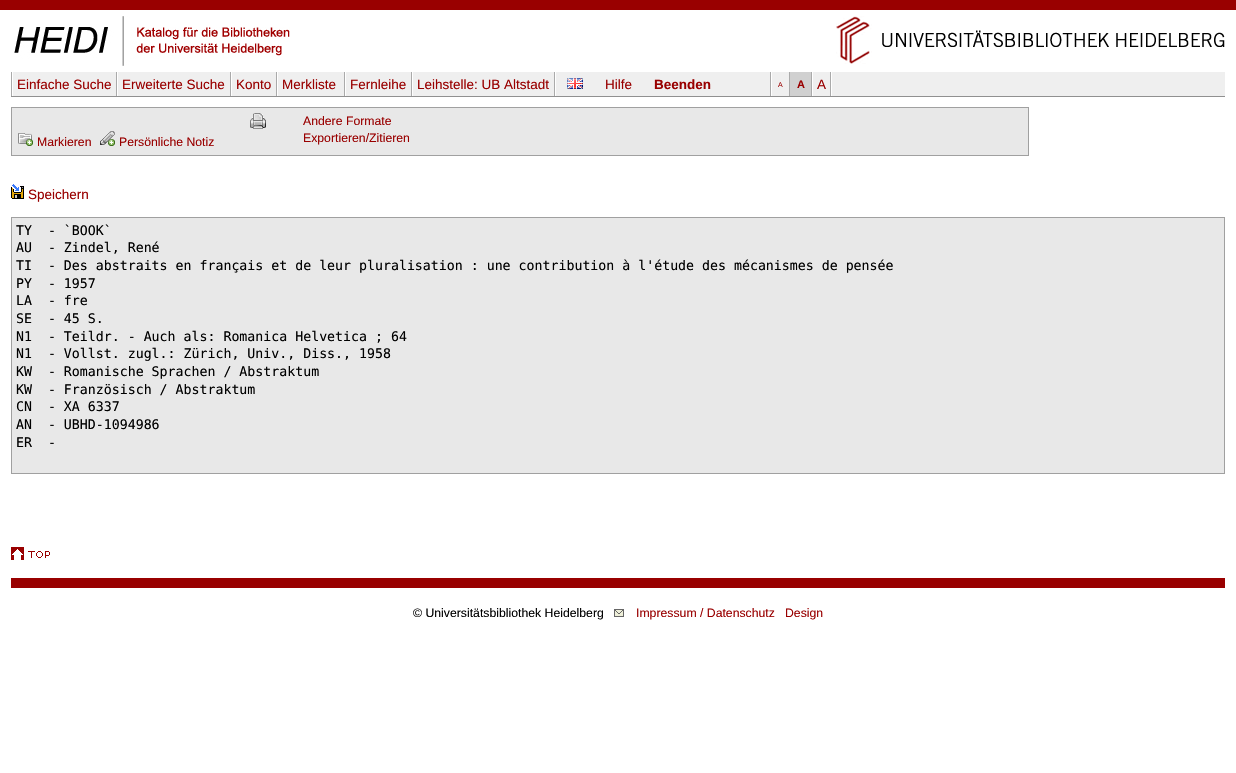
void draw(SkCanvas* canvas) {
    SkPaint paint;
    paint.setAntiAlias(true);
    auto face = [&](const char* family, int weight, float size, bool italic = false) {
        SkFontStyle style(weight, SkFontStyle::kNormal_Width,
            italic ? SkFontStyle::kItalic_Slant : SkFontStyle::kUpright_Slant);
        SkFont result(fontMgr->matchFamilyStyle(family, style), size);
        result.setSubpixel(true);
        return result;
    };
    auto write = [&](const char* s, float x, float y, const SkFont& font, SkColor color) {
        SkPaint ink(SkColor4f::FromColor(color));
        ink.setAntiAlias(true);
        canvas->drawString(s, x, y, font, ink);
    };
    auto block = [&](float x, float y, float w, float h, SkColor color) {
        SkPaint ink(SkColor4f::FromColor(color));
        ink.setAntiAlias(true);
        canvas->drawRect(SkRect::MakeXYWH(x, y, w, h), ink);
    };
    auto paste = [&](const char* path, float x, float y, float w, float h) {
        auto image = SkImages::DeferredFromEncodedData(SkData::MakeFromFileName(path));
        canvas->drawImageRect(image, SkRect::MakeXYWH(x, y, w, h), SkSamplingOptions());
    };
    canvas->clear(SK_ColorWHITE);
    block(0, 0, 1236, 10, SkColorSetRGB(153, 0, 0));
    paste("pic1.png", 14, 16, 276, 50);
    paste("pic2.png", 836, 16, 389, 48);
    block(13, 72, 1212, 24, SkColorSetRGB(239, 239, 239));
    block(11, 96, 1214, 1, SkColorSetRGB(144, 144, 144));
    block(555, 72, 1, 24, SK_ColorWHITE);
    block(11, 72, 1, 24, SkColorSetRGB(170, 170, 170));
    block(116, 72, 1, 24, SkColorSetRGB(170, 170, 170));
    auto kFont1 = face("Liberation Sans", 400, 13.5f);
    write("Einfache Suche", 17, 89, kFont1, SkColorSetRGB(153, 0, 0));
    block(230, 72, 1, 24, SkColorSetRGB(170, 170, 170));
    block(117, 72, 1, 24, SK_ColorWHITE);
    write("Erweiterte Suche", 122, 89, kFont1, SkColorSetRGB(153, 0, 0));
    block(276, 72, 1, 24, SkColorSetRGB(170, 170, 170));
    block(231, 72, 1, 24, SK_ColorWHITE);
    write("Konto", 236, 89, kFont1, SkColorSetRGB(153, 0, 0));
    block(344, 72, 1, 24, SkColorSetRGB(170, 170, 170));
    block(277, 72, 1, 24, SK_ColorWHITE);
    write("Merkliste", 282, 89, kFont1, SkColorSetRGB(153, 0, 0));
    block(411, 72, 1, 24, SkColorSetRGB(170, 170, 170));
    block(345, 72, 1, 24, SK_ColorWHITE);
    write("Fernleihe", 350, 89, kFont1, SkColorSetRGB(153, 0, 0));
    block(554, 72, 1, 24, SkColorSetRGB(170, 170, 170));
    block(412, 72, 1, 24, SK_ColorWHITE);
    write("Leihstelle: UB Altstadt", 417, 89, kFont1, SkColorSetRGB(153, 0, 0));
    paste("pic3.png", 567, 78, 16, 11);
    write("Hilfe", 605, 89, kFont1, SkColorSetRGB(153, 0, 0));
    auto kFont2 = face("Liberation Sans", 700, 13.5f);
    write("Beenden", 654, 89, kFont2, SkColorSetRGB(153, 0, 0));
    block(831, 72, 1, 24, SK_ColorWHITE);
    block(770, 72, 1, 24, SkColorSetRGB(170, 170, 170));
    block(789, 72, 1, 24, SkColorSetRGB(170, 170, 170));
    block(771, 72, 1, 24, SK_ColorWHITE);
    auto kFont3 = face("Liberation Sans", 400, 7);
    write("A", 778, 87, kFont3, SkColorSetRGB(153, 0, 0));
    block(790, 72, 21, 24, SkColorSetRGB(208, 208, 208));
    block(811, 72, 1, 24, SkColorSetRGB(170, 170, 170));
    auto kFont4 = face("Liberation Sans", 700, 11);
    write("A", 797, 88, kFont4, SkColorSetRGB(153, 0, 0));
    block(830, 72, 1, 24, SkColorSetRGB(170, 170, 170));
    block(812, 72, 1, 24, SK_ColorWHITE);
    write("A", 817, 89, kFont1, SkColorSetRGB(153, 0, 0));
    paint.setColor(SkColorSetRGB(232, 232, 232));
    canvas->drawRect(SkRect::MakeXYWH(11.5f, 107.5f, 1017, 48), paint);
    paint.setStyle(SkPaint::kStroke_Style);
    paint.setStrokeWidth(1);
    paint.setColor(SkColorSetRGB(160, 160, 160));
    canvas->drawRect(SkRect::MakeXYWH(11.5f, 107.5f, 1017, 48), paint);
    paste("pic4.png", 18, 133, 15, 13);
    auto kFont5 = face("Liberation Sans", 400, 12.25f);
    write("Markieren", 37, 146, kFont5, SkColorSetRGB(153, 0, 0));
    paste("pic5.png", 100, 131, 15, 15);
    write("Persönliche Notiz", 119, 146, kFont5, SkColorSetRGB(153, 0, 0));
    paste("pic6.png", 250, 113, 16, 16);
    write("Andere Formate", 303, 125, kFont5, SkColorSetRGB(153, 0, 0));
    write("Exportieren/Zitieren", 303, 142, kFont5, SkColorSetRGB(153, 0, 0));
    paste("pic7.png", 11, 184, 13, 15);
    write("Speichern", 28, 199, kFont1, SkColorSetRGB(153, 0, 0));
    paint.setStyle(SkPaint::kFill_Style);
    paint.setColor(SkColorSetRGB(232, 232, 232));
    canvas->drawRect(SkRect::MakeXYWH(11.5f, 217.5f, 1213, 256), paint);
    paint.setStyle(SkPaint::kStroke_Style);
    paint.setColor(SkColorSetRGB(160, 160, 160));
    canvas->drawRect(SkRect::MakeXYWH(11.5f, 217.5f, 1213, 256), paint);
    auto kFont6 = face("DejaVu Sans Mono", 400, 13.25f);
    write("TY  - `BOOK`", 16, 235, kFont6, SK_ColorBLACK);
    write("AU  - Zindel, René", 16, 252, kFont6, SK_ColorBLACK);
    write("TI  - Des abstraits en français et de leur pluralisation : une contribution à l'étude des mécanismes de pensée", 16, 270, kFont6, SK_ColorBLACK);
    write("PY  - 1957", 16, 288, kFont6, SK_ColorBLACK);
    write("LA  - fre", 16, 305, kFont6, SK_ColorBLACK);
    write("SE  - 45 S.", 16, 323, kFont6, SK_ColorBLACK);
    write("N1  - Teildr. - Auch als: Romanica Helvetica ; 64", 16, 341, kFont6, SK_ColorBLACK);
    write("N1  - Vollst. zugl.: Zürich, Univ., Diss., 1958", 16, 358, kFont6, SK_ColorBLACK);
    write("KW  - Romanische Sprachen / Abstraktum", 16, 376, kFont6, SK_ColorBLACK);
    write("KW  - Französisch / Abstraktum", 16, 394, kFont6, SK_ColorBLACK);
    write("CN  - XA 6337", 16, 411, kFont6, SK_ColorBLACK);
    write("AN  - UBHD-1094986", 16, 429, kFont6, SK_ColorBLACK);
    write("ER  -", 16, 447, kFont6, SK_ColorBLACK);
    paste("pic8.png", 11, 547, 39, 13);
    block(11, 578, 1214, 10, SkColorSetRGB(153, 0, 0));
    write("© Universitätsbibliothek Heidelberg", 413, 617, kFont5, SK_ColorBLACK);
    paste("pic9.png", 614, 609, 10, 8);
    write("Impressum / Datenschutz", 636, 617, kFont5, SkColorSetRGB(153, 0, 0));
    write("Design", 785, 617, kFont5, SkColorSetRGB(153, 0, 0));
}
